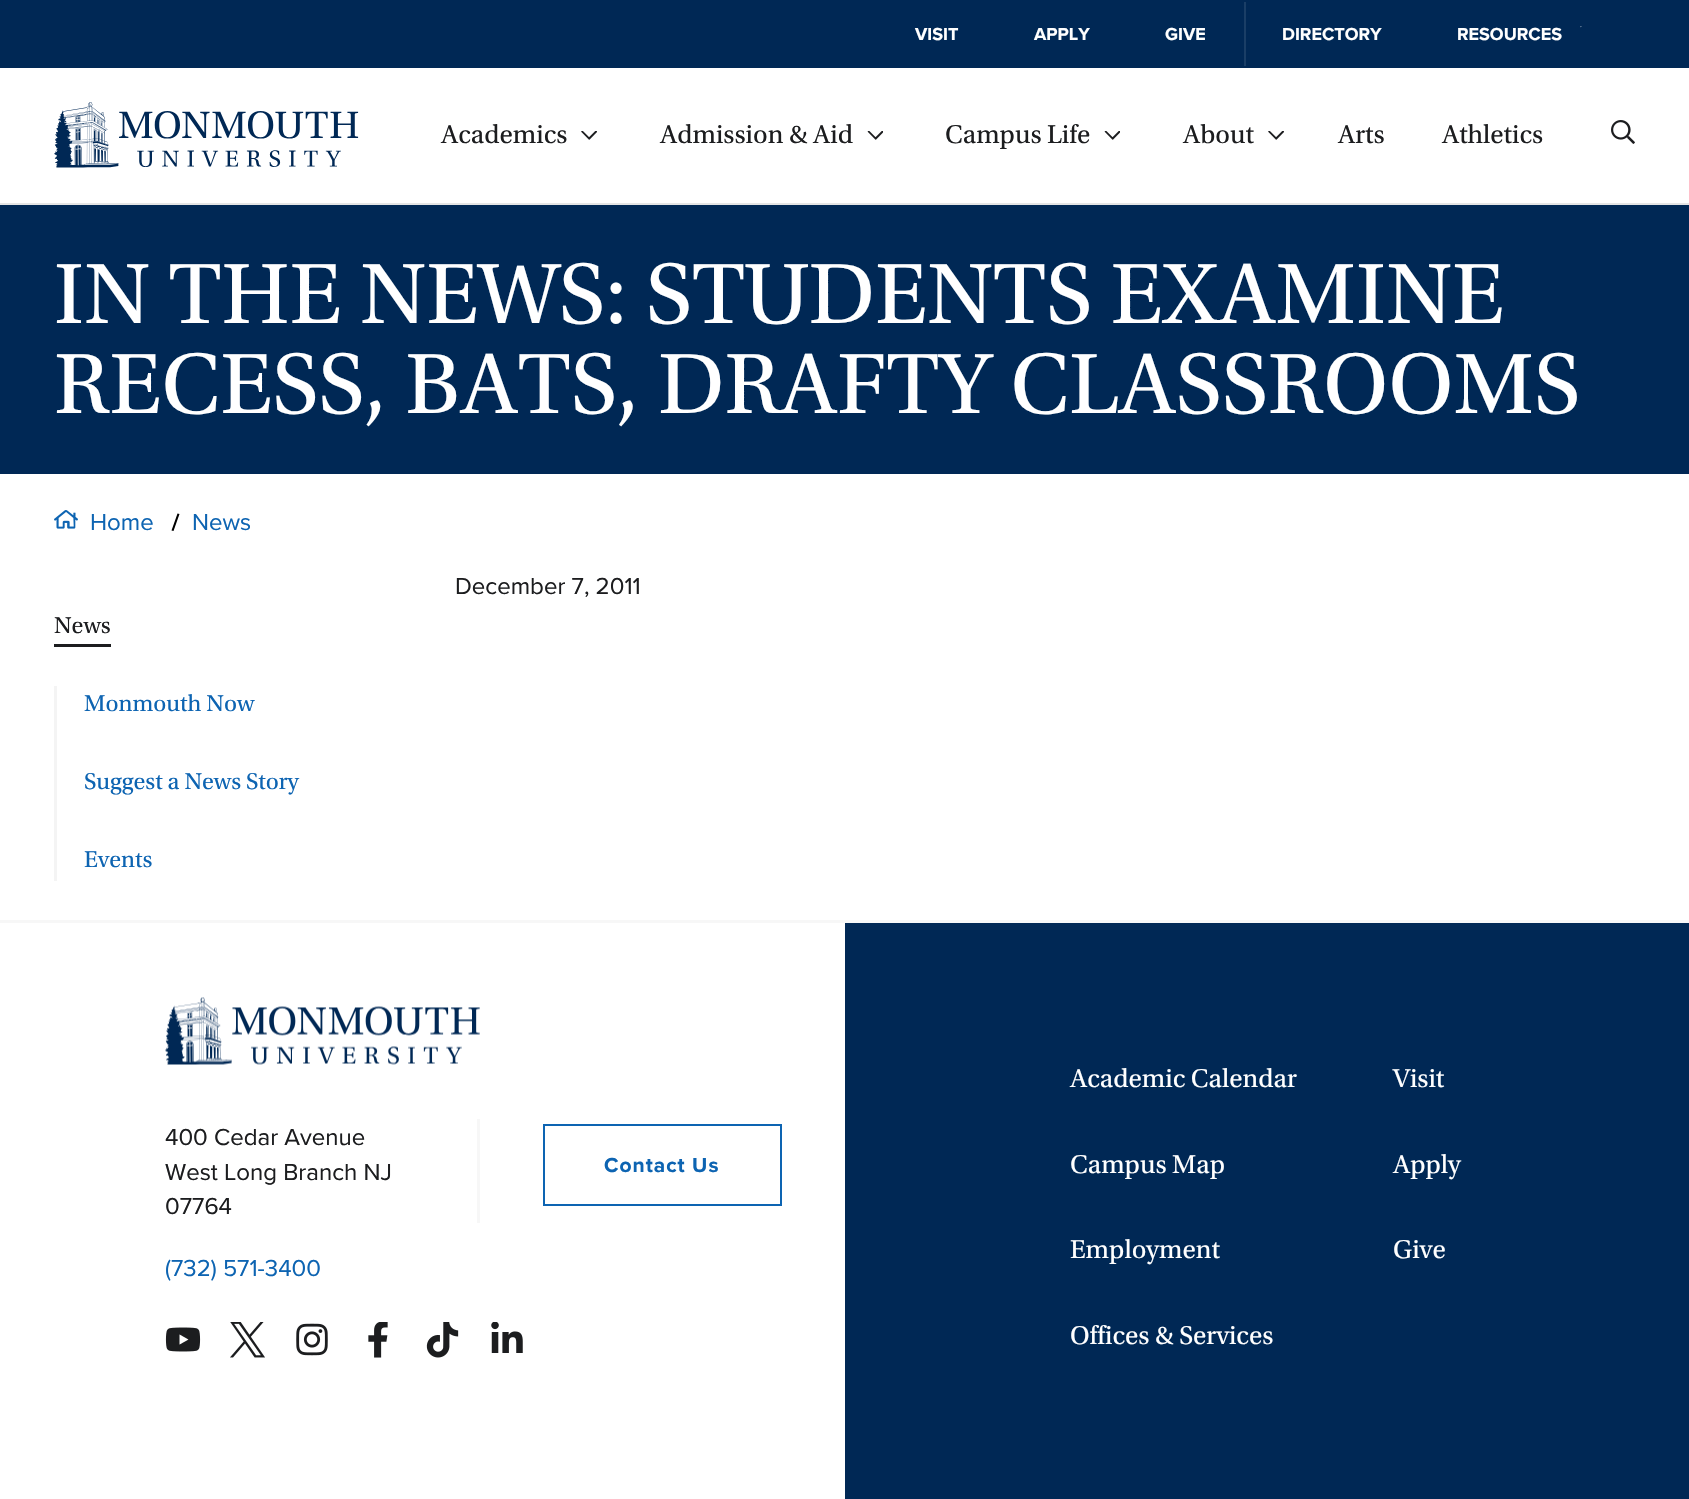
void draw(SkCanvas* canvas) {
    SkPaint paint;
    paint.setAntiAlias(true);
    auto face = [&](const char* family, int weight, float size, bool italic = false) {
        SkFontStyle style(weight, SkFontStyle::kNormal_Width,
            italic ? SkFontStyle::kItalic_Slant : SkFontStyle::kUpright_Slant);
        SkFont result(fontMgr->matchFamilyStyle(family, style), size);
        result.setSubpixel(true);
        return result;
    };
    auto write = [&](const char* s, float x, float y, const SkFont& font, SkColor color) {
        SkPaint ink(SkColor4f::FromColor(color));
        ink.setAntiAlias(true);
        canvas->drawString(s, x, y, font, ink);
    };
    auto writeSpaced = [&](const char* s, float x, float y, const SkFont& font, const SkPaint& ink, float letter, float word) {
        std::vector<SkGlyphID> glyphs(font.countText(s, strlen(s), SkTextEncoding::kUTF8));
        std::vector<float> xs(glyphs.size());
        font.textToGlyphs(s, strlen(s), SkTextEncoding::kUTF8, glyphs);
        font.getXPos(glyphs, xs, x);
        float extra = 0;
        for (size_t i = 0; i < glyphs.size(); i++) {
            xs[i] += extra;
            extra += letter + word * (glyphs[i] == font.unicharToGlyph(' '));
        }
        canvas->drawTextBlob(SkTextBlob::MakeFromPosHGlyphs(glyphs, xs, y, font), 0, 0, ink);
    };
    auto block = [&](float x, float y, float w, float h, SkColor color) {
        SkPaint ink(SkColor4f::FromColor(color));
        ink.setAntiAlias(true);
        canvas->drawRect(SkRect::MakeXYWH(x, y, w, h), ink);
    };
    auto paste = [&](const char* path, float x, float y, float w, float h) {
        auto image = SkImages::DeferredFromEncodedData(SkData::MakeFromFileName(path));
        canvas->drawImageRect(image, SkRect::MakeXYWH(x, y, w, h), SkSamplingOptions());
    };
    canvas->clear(SK_ColorWHITE);
    block(0, 0, 1689, 68, SkColorSetRGB(0, 40, 85));
    auto kFont1 = face("Proxima Nova", 700, 18);
    write("VISIT", 915, 40, kFont1, SK_ColorWHITE);
    write("APPLY", 1034, 40, kFont1, SK_ColorWHITE);
    block(1244, 2, 2, 64, SkColorSetRGB(26, 62, 102));
    write("GIVE", 1165, 40, kFont1, SK_ColorWHITE);
    write("DIRECTORY", 1282, 40, kFont1, SK_ColorWHITE);
    write("RESOURCES", 1457, 40, kFont1, SK_ColorWHITE);
    paste("pic1.png", 1580, 26, 2, 2);
    block(0, 203, 1689, 2, SkColorSetRGB(229, 229, 229));
    paste("pic2.png", 54, 102, 305, 66);
    auto kFont2 = face("Utopia", 400, 27);
    write("Academics", 441, 143, kFont2, SkColorSetRGB(28, 29, 31));
    paste("pic3.png", 581, 131, 16, 9);
    write("Admission & Aid", 660, 143, kFont2, SkColorSetRGB(28, 29, 31));
    paste("pic4.png", 867, 131, 16, 9);
    write("Campus Life", 945, 143, kFont2, SkColorSetRGB(28, 29, 31));
    paste("pic4.png", 1104, 131, 16, 9);
    write("About", 1183, 143, kFont2, SkColorSetRGB(28, 29, 31));
    paste("pic3.png", 1268, 131, 16, 9);
    write("Arts", 1338, 143, kFont2, SkColorSetRGB(28, 29, 31));
    write("Athletics", 1442, 143, kFont2, SkColorSetRGB(28, 29, 31));
    paste("pic5.png", 1611, 120, 24, 24);
    block(0, 205, 1689, 269, SkColorSetRGB(0, 40, 85));
    auto kFont3 = face("Utopia", 400, 90);
    write("IN THE NEWS: STUDENTS EXAMINE", 54, 323, kFont3, SK_ColorWHITE);
    write("RECESS, BATS, DRAFTY CLASSROOMS", 54, 413, kFont3, SK_ColorWHITE);
    paste("pic6.png", 54, 510, 24, 19);
    auto kFont4 = face("Proxima Nova", 400, 24);
    write("Home", 90, 530, kFont4, SkColorSetRGB(13, 100, 178));
    paint.setColor(SK_ColorBLACK);
    canvas->drawPath(SkPathBuilder().moveTo(177.5f, 513.5f).lineTo(179.5f, 514).lineTo(173.5f, 531).lineTo(171.5f, 530.5f).close().detach(), paint);
    write("News", 192, 530, kFont4, SkColorSetRGB(13, 100, 178));
    write("December 7, 2011", 455, 594, kFont4, SkColorSetRGB(28, 29, 31));
    block(54, 644, 57, 3, SkColorSetRGB(28, 29, 31));
    auto kFont5 = face("Utopia", 400, 24);
    write("News", 54, 633, kFont5, SkColorSetRGB(28, 29, 31));
    block(54, 686, 3, 195, SkColorSetRGB(244, 244, 244));
    write("Monmouth Now", 84, 711, kFont5, SkColorSetRGB(13, 100, 178));
    write("Suggest a News Story", 84, 789, kFont5, SkColorSetRGB(13, 100, 178));
    write("Events", 84, 867, kFont5, SkColorSetRGB(13, 100, 178));
    block(0, 920, 1689, 3, SkColorSetRGB(247, 247, 247));
    paste("pic7.png", 165, 997, 315, 68);
    block(477, 1119, 3, 104, SkColorSetRGB(247, 247, 247));
    write("400 Cedar Avenue", 165, 1145, kFont4, SkColorSetRGB(28, 29, 31));
    write("West Long Branch NJ", 165, 1180, kFont4, SkColorSetRGB(28, 29, 31));
    write("07764", 165, 1214, kFont4, SkColorSetRGB(28, 29, 31));
    write("(732) 571-3400", 165, 1276, kFont4, SkColorSetRGB(13, 100, 178));
    paint.setStyle(SkPaint::kStroke_Style);
    paint.setStrokeWidth(2);
    paint.setColor(SkColorSetRGB(13, 100, 178));
    canvas->drawRect(SkRect::MakeXYWH(544, 1125, 237, 80), paint);
    auto kFont6 = face("Proxima Nova", 700, 21);
    paint.setStyle(SkPaint::kFill_Style);
    writeSpaced("Contact Us", 604, 1172, kFont6, paint, 1, 0);
    paste("pic8.png", 165, 1327, 36, 25);
    paste("pic9.png", 230, 1322, 35, 36);
    paste("pic10.png", 296, 1323, 32, 33);
    paste("pic11.png", 368, 1322, 20, 36);
    paste("pic12.png", 426, 1322, 33, 36);
    paste("pic13.png", 491, 1322, 32, 31);
    block(845, 923, 844, 576, SkColorSetRGB(0, 40, 85));
    write("Academic Calendar", 1070, 1087, kFont2, SK_ColorWHITE);
    write("Visit", 1393, 1087, kFont2, SK_ColorWHITE);
    write("Campus Map", 1070, 1173, kFont2, SK_ColorWHITE);
    write("Apply", 1393, 1173, kFont2, SK_ColorWHITE);
    write("Employment", 1070, 1258, kFont2, SK_ColorWHITE);
    write("Give", 1393, 1258, kFont2, SK_ColorWHITE);
    write("Offices & Services", 1070, 1344, kFont2, SK_ColorWHITE);
}
